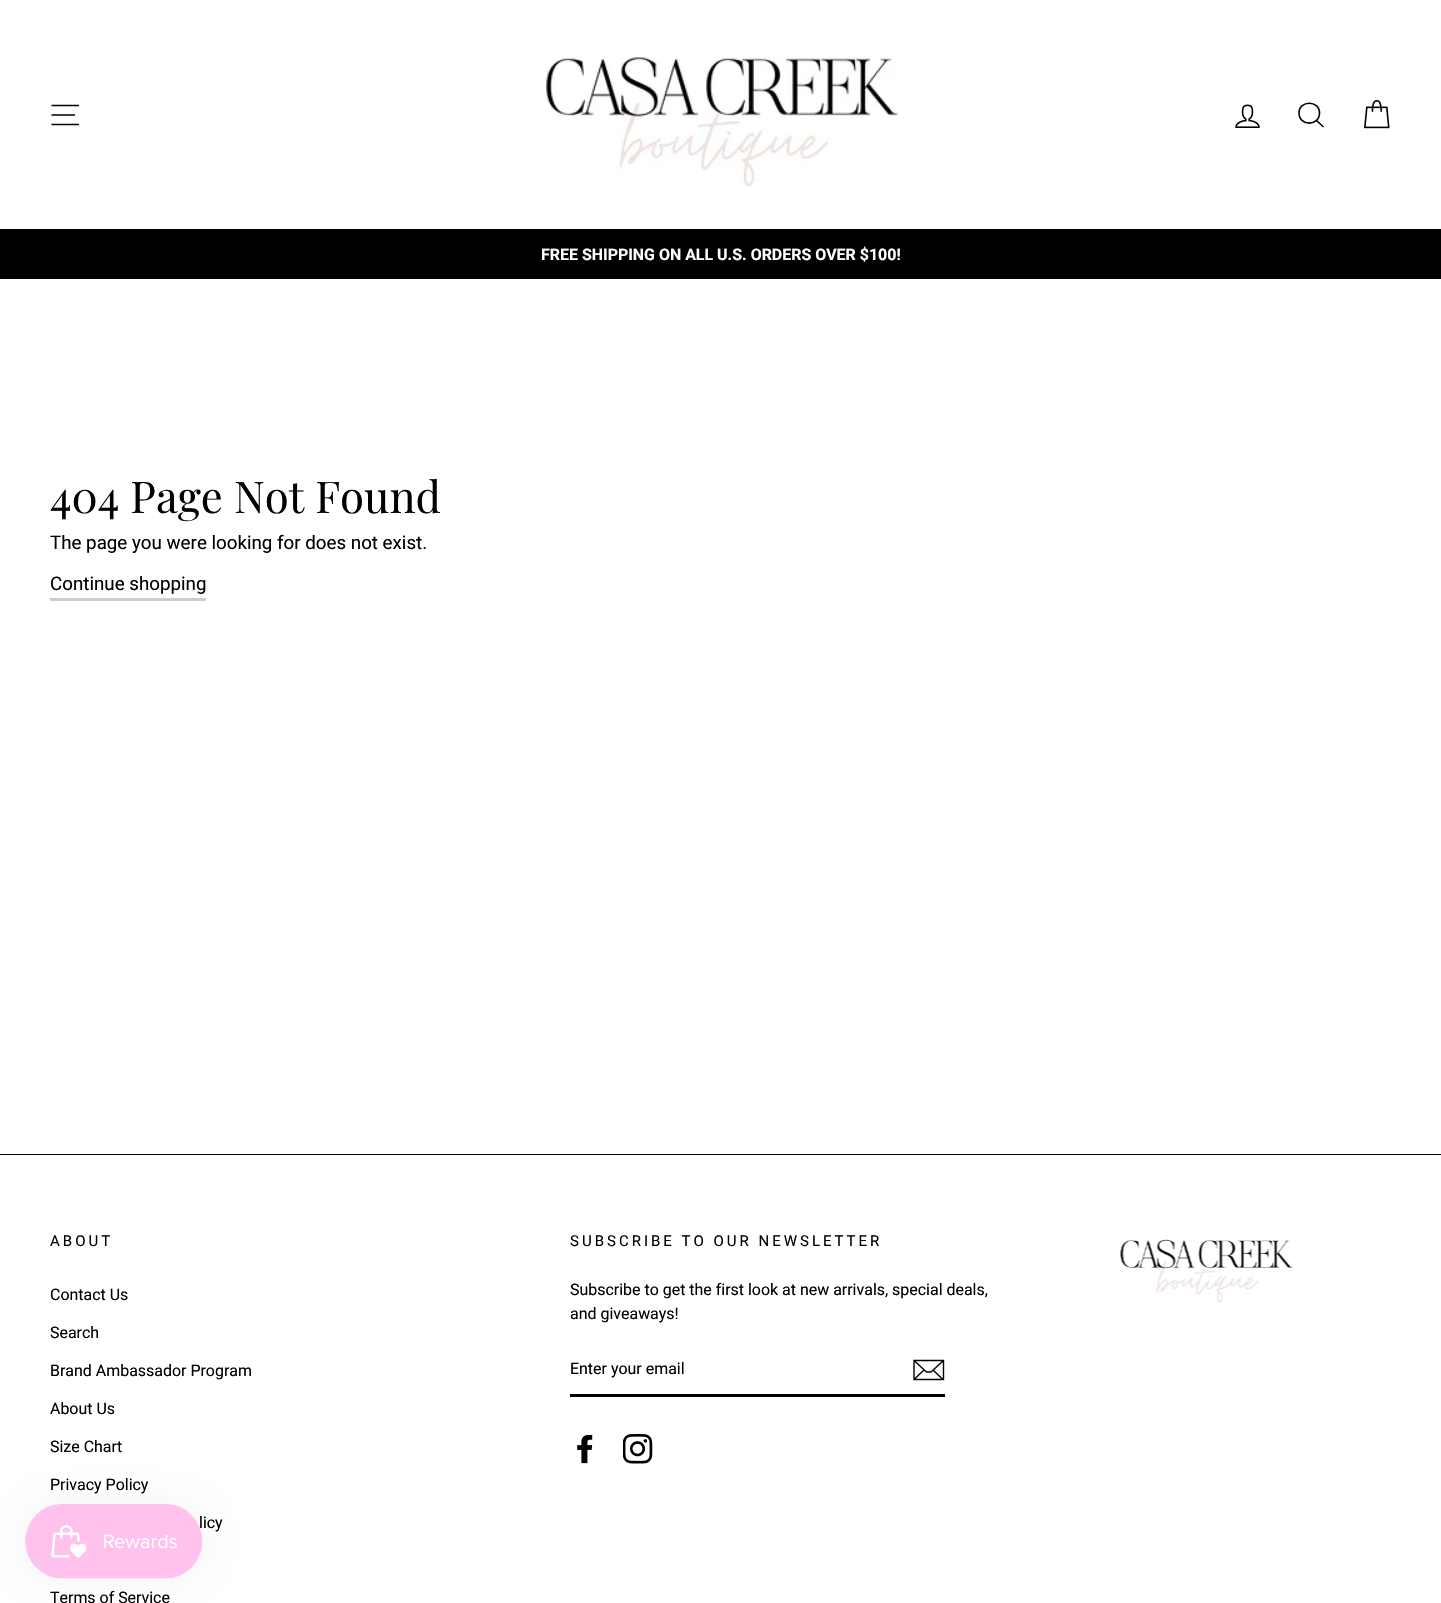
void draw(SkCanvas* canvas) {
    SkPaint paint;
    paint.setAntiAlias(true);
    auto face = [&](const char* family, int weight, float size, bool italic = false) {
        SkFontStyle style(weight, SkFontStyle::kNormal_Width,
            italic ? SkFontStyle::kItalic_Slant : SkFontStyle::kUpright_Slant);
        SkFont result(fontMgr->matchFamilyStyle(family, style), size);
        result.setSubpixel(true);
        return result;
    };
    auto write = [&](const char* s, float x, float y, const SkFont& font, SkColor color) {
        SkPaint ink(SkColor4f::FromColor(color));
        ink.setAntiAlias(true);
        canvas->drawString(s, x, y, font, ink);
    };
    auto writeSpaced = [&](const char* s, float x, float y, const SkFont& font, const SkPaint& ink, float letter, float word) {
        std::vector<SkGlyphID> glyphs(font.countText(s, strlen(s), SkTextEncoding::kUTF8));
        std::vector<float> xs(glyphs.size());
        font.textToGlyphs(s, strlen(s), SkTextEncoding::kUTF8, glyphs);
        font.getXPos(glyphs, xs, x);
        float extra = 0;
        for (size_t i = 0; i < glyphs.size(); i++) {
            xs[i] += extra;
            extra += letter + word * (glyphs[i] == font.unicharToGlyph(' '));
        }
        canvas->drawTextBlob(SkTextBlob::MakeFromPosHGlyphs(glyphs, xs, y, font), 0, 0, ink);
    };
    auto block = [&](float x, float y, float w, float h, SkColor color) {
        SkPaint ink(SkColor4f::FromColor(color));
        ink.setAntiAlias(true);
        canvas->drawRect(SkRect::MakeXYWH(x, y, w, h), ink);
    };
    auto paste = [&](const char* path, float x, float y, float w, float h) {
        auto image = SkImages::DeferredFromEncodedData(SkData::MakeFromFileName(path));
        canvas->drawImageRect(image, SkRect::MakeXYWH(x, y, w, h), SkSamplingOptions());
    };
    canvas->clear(SK_ColorWHITE);
    block(0, 229, 1441, 50, SK_ColorBLACK);
    paint.setStyle(SkPaint::kStroke_Style);
    paint.setStrokeWidth(1.6f);
    paint.setColor(SK_ColorBLACK);
    canvas->drawPath(SkPathBuilder().moveTo(51.5f, 105.5f).lineTo(79, 105.5f).moveTo(51.5f, 115).lineTo(75, 115).moveTo(51.5f, 124.5f).lineTo(79, 124.5f).detach(), paint);
    paste("pic1.png", 545, 57, 353, 130);
    paste("pic2.png", 1235, 104, 25, 24);
    canvas->drawPath(SkPathBuilder().moveTo(1319.5f, 113).cubicTo(1319.5f, 126.5f, 1299, 126.5f, 1299, 113).cubicTo(1299, 100, 1319.5f, 100, 1319.5f, 113).close().moveTo(1323.5f, 127).lineTo(1316.5f, 120.5f).detach(), paint);
    paste("pic3.png", 1364, 100, 26, 29);
    auto kFont1 = face("Roboto", 700, 15.95f);
    write("FREE SHIPPING ON ALL U.S. ORDERS OVER $100!", 541, 260, kFont1, SK_ColorWHITE);
    auto kFont2 = face("Playfair Display", 400, 43.75f);
    write("404 Page Not Found", 50, 513, kFont2, SK_ColorBLACK);
    auto kFont3 = face("Roboto", 400, 18.75f);
    write("The page you were looking for does not exist.", 50, 549, kFont3, SK_ColorBLACK);
    block(50, 598, 156, 3, SkColorSetRGB(204, 204, 204));
    write("Continue shopping", 50, 590, kFont3, SK_ColorBLACK);
    block(0, 1154, 1441, 1, SK_ColorBLACK);
    auto kFont4 = face("Roboto", 400, 15);
    paint.setStyle(SkPaint::kFill_Style);
    writeSpaced("ABOUT", 50, 1246, kFont4, paint, 3, 0);
    auto kFont5 = face("Roboto", 400, 15.95f);
    write("Contact Us", 50, 1300, kFont5, SK_ColorBLACK);
    write("Search", 50, 1338, kFont5, SK_ColorBLACK);
    write("Brand Ambassador Program", 50, 1376, kFont5, SK_ColorBLACK);
    write("About Us", 50, 1414, kFont5, SK_ColorBLACK);
    write("Size Chart", 50, 1452, kFont5, SK_ColorBLACK);
    write("Privacy Policy", 50, 1490, kFont5, SK_ColorBLACK);
    write("licy", 199, 1528, kFont5, SK_ColorBLACK);
    write("Terms of Service", 50, 1603, kFont5, SK_ColorBLACK);
    writeSpaced("SUBSCRIBE TO OUR NEWSLETTER", 570, 1246, kFont4, paint, 3, 0);
    write("Subscribe to get the first look at new arrivals, special deals,", 570, 1295, kFont5, SK_ColorBLACK);
    write("and giveaways!", 570, 1319, kFont5, SK_ColorBLACK);
    block(570, 1394, 375, 3, SK_ColorBLACK);
    write("Enter your email", 570, 1374, kFont5, SK_ColorBLACK);
    paint.setStyle(SkPaint::kStroke_Style);
    paint.setStrokeWidth(1.4f);
    canvas->drawPath(SkPathBuilder().moveTo(943.5f, 1379.5f).lineTo(914, 1379.5f).lineTo(914, 1360.5f).lineTo(943.5f, 1360.5f).close().moveTo(914, 1360.5f).lineTo(926.5f, 1372).lineTo(931, 1372).lineTo(943.5f, 1360.5f).moveTo(924, 1370).lineTo(914.5f, 1379).moveTo(943, 1379.5f).lineTo(933, 1370).detach(), paint);
    paste("pic4.png", 577, 1434, 16, 30);
    paste("pic5.png", 623, 1434, 30, 30);
    paste("pic6.png", 1120, 1239, 173, 64);
    paint.setStyle(SkPaint::kFill_Style);
    paint.setColor(SkColorSetARGB(13, 0, 0, 0));
    paint.setMaskFilter(SkMaskFilter::MakeBlur(kNormal_SkBlurStyle, 15.5f));
    canvas->drawRoundRect(SkRect::MakeXYWH(25, 1504, 178, 75), 37.5f, 37.5f, paint);
    paint.setMaskFilter(nullptr);
    paste("pic7.png", 25, 1504, 178, 75);
}
